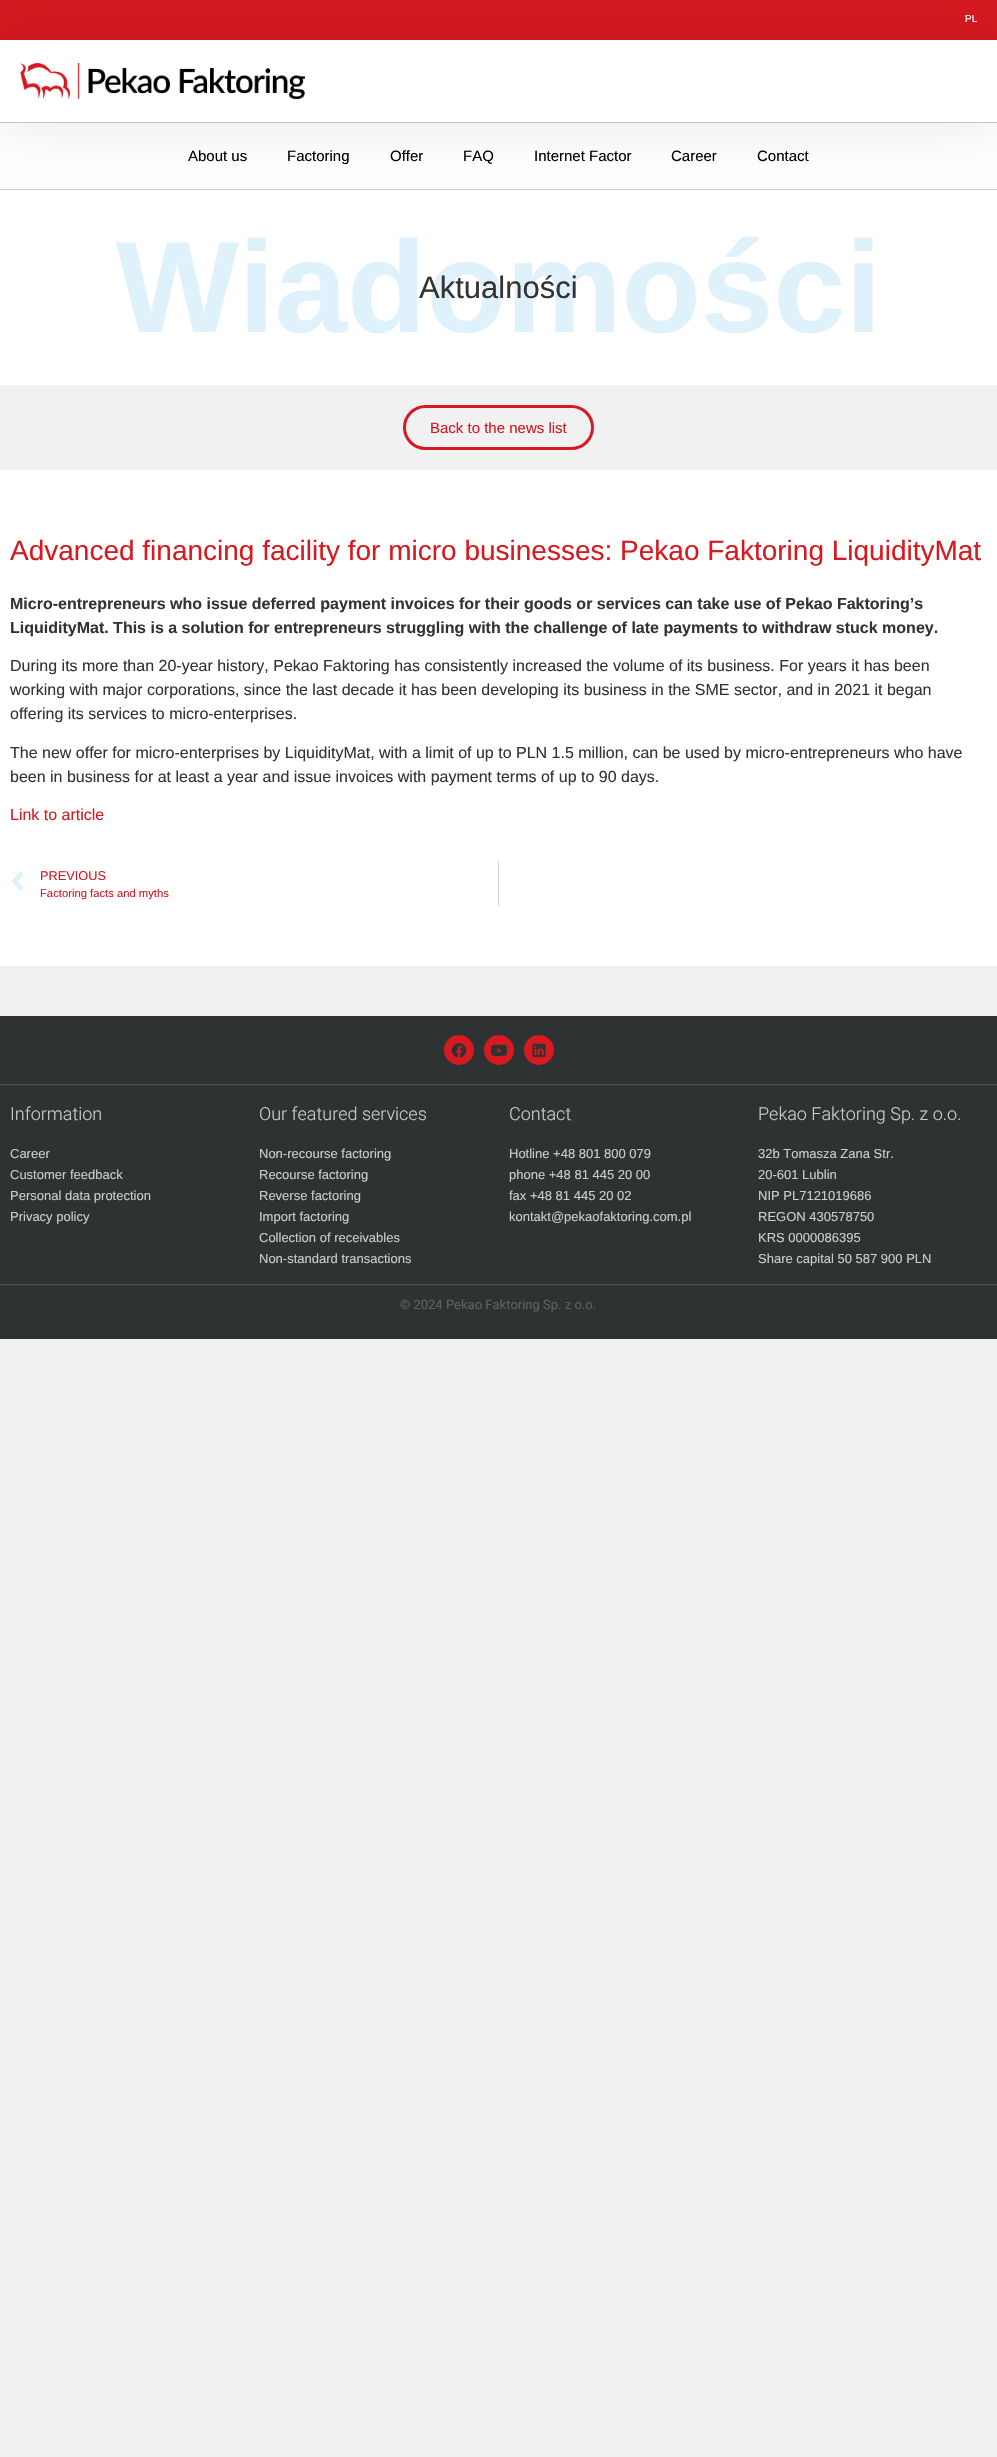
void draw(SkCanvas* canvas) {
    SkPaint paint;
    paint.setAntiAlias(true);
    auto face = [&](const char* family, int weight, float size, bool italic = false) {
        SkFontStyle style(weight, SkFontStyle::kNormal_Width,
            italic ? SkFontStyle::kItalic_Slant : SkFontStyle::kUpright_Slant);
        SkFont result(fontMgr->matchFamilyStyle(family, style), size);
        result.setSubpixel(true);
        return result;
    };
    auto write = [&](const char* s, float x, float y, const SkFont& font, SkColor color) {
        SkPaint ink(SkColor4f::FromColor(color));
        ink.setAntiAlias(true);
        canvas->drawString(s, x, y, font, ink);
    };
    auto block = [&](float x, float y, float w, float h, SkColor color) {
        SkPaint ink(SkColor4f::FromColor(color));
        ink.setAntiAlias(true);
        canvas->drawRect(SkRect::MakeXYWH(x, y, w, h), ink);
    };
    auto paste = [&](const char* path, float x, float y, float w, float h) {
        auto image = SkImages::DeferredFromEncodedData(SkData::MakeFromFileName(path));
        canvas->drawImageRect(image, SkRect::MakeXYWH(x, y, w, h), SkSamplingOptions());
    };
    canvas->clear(SkColorSetRGB(241, 241, 241));
    block(0, 40, 997, 149, SK_ColorWHITE);
    block(0, 0, 997, 40, SkColorSetRGB(215, 25, 32));
    block(0, 122, 997, 1, SkColorSetRGB(204, 204, 204));
    block(0, 189, 997, 1, SkColorSetRGB(204, 204, 204));
    block(0, 190, 997, 195, SK_ColorWHITE);
    canvas->save();
    canvas->clipPath(SkPathBuilder(SkPathFillType::kEvenOdd).moveTo(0, 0).lineTo(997, 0).lineTo(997, 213).lineTo(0, 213).close().moveTo(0, 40).lineTo(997, 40).lineTo(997, 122).lineTo(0, 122).close().detach(), true);
    paint.setColor(SkColorSetARGB(26, 0, 0, 0));
    paint.setMaskFilter(SkMaskFilter::MakeBlur(kNormal_SkBlurStyle, 30));
    canvas->drawRect(SkRect::MakeXYWH(0, 40, 997, 82), paint);
    paint.setMaskFilter(nullptr);
    canvas->restore();
    paste("pic1.png", 20, 63, 285, 36);
    auto kFont1 = face("Liberation Sans", 400, 10);
    write("PL", 965, 22, kFont1, SK_ColorWHITE);
    auto kFont2 = face("Liberation Sans", 400, 15);
    write("About us", 188, 161, kFont2, SK_ColorBLACK);
    write("Factoring", 287, 161, kFont2, SK_ColorBLACK);
    write("Offer", 390, 161, kFont2, SK_ColorBLACK);
    write("FAQ", 463, 161, kFont2, SK_ColorBLACK);
    write("Internet Factor", 534, 161, kFont2, SK_ColorBLACK);
    write("Career", 671, 161, kFont2, SK_ColorBLACK);
    write("Contact", 757, 161, kFont2, SK_ColorBLACK);
    auto kFont3 = face("Liberation Sans", 700, 130);
    write("Wiadomości", 116, 332, kFont3, SkColorSetRGB(223, 241, 251));
    auto kFont4 = face("Liberation Sans", 400, 31);
    write("Aktualności", 419, 298, kFont4, SkColorSetRGB(51, 51, 51));
    paint.setStyle(SkPaint::kStroke_Style);
    paint.setStrokeWidth(3);
    paint.setColor(SkColorSetRGB(215, 25, 32));
    canvas->drawRoundRect(SkRect::MakeXYWH(404.5f, 406.5f, 188, 42), 21, 21, paint);
    write("Back to the news list", 430, 433, kFont2, SkColorSetRGB(215, 25, 32));
    block(0, 470, 997, 496, SK_ColorWHITE);
    auto kFont5 = face("Liberation Sans", 400, 28);
    write("Advanced financing facility for micro businesses: Pekao Faktoring LiquidityMat", 10, 560, kFont5, SkColorSetRGB(215, 25, 32));
    auto kFont6 = face("Liberation Sans", 700, 16);
    write("Micro-entrepreneurs who issue deferred payment invoices for their goods or services can take use of Pekao Faktoring’s", 10, 609, kFont6, SkColorSetRGB(51, 51, 51));
    write("LiquidityMat. This is a solution for entrepreneurs struggling with the challenge of late payments to withdraw stuck money.", 10, 633, kFont6, SkColorSetRGB(51, 51, 51));
    auto kFont7 = face("Liberation Sans", 400, 16);
    write("During its more than 20-year history, Pekao Faktoring has consistently increased the volume of its business. For years it has been", 10, 671, kFont7, SkColorSetRGB(51, 51, 51));
    write("working with major corporations, since the last decade it has been developing its business in the SME sector, and in 2021 it began", 10, 695, kFont7, SkColorSetRGB(51, 51, 51));
    write("offering its services to micro-enterprises.", 10, 719, kFont7, SkColorSetRGB(51, 51, 51));
    write("The new offer for micro-enterprises by LiquidityMat, with a limit of up to PLN 1.5 million, can be used by micro-entrepreneurs who have", 10, 758, kFont7, SkColorSetRGB(51, 51, 51));
    write("been in business for at least a year and issue invoices with payment terms of up to 90 days.", 10, 782, kFont7, SkColorSetRGB(51, 51, 51));
    write("Link to article", 10, 820, kFont7, SkColorSetRGB(215, 25, 32));
    paste("pic2.png", 11, 872, 13, 19);
    auto kFont8 = face("Liberation Sans", 400, 12.75f);
    write("PREVIOUS", 40, 880, kFont8, SkColorSetRGB(215, 25, 32));
    auto kFont9 = face("Liberation Sans", 400, 11.25f);
    write("Factoring facts and myths", 40, 897, kFont9, SkColorSetRGB(215, 25, 32));
    block(498, 861, 1, 45, SkColorSetRGB(212, 212, 212));
    block(0, 1016, 997, 323, SkColorSetRGB(47, 50, 51));
    block(0, 1084, 997, 1, SkColorSetRGB(78, 81, 82));
    paint.setStyle(SkPaint::kFill_Style);
    canvas->drawCircle(459, 1050, 15, paint);
    paste("pic3.png", 451, 1043, 16, 15);
    canvas->drawCircle(499, 1050, 15, paint);
    paste("pic4.png", 491, 1044, 16, 12);
    canvas->drawCircle(539, 1050, 15, paint);
    paste("pic5.png", 532, 1043, 14, 14);
    auto kFont10 = face("Roboto", 300, 18);
    write("Information", 10, 1120, kFont10, SkColorSetRGB(204, 204, 204));
    auto kFont11 = face("Liberation Sans", 400, 13);
    write("Career", 10, 1158, kFont11, SkColorSetRGB(204, 204, 204));
    write("Customer feedback", 10, 1179, kFont11, SkColorSetRGB(204, 204, 204));
    write("Personal data protection", 10, 1200, kFont11, SkColorSetRGB(204, 204, 204));
    write("Privacy policy", 10, 1221, kFont11, SkColorSetRGB(204, 204, 204));
    write("Our featured services", 259, 1120, kFont10, SkColorSetRGB(204, 204, 204));
    write("Non-recourse factoring", 259, 1158, kFont11, SkColorSetRGB(204, 204, 204));
    write("Recourse factoring", 259, 1179, kFont11, SkColorSetRGB(204, 204, 204));
    write("Reverse factoring", 259, 1200, kFont11, SkColorSetRGB(204, 204, 204));
    write("Import factoring", 259, 1221, kFont11, SkColorSetRGB(204, 204, 204));
    write("Collection of receivables", 259, 1242, kFont11, SkColorSetRGB(204, 204, 204));
    write("Non-standard transactions", 259, 1263, kFont11, SkColorSetRGB(204, 204, 204));
    write("Contact", 509, 1120, kFont10, SkColorSetRGB(204, 204, 204));
    write("Hotline +48 801 800 079", 509, 1158, kFont11, SkColorSetRGB(204, 204, 204));
    write("phone +48 81 445 20 00", 509, 1179, kFont11, SkColorSetRGB(204, 204, 204));
    write("fax +48 81 445 20 02", 509, 1200, kFont11, SkColorSetRGB(204, 204, 204));
    write("kontakt@pekaofaktoring.com.pl", 509, 1221, kFont11, SkColorSetRGB(204, 204, 204));
    write("Pekao Faktoring Sp. z o.o.", 758, 1120, kFont10, SkColorSetRGB(204, 204, 204));
    write("32b Tomasza Zana Str.", 758, 1158, kFont11, SkColorSetRGB(204, 204, 204));
    write("20-601 Lublin", 758, 1179, kFont11, SkColorSetRGB(204, 204, 204));
    write("NIP PL7121019686", 758, 1200, kFont11, SkColorSetRGB(204, 204, 204));
    write("REGON 430578750", 758, 1221, kFont11, SkColorSetRGB(204, 204, 204));
    write("KRS 0000086395", 758, 1242, kFont11, SkColorSetRGB(204, 204, 204));
    write("Share capital 50 587 900 PLN", 758, 1263, kFont11, SkColorSetRGB(204, 204, 204));
    block(0, 1284, 997, 1, SkColorSetRGB(78, 81, 82));
    auto kFont12 = face("Roboto", 400, 13);
    write("© 2024 Pekao Faktoring Sp. z o.o.", 400, 1309, kFont12, SkColorSetRGB(95, 96, 97));
}
